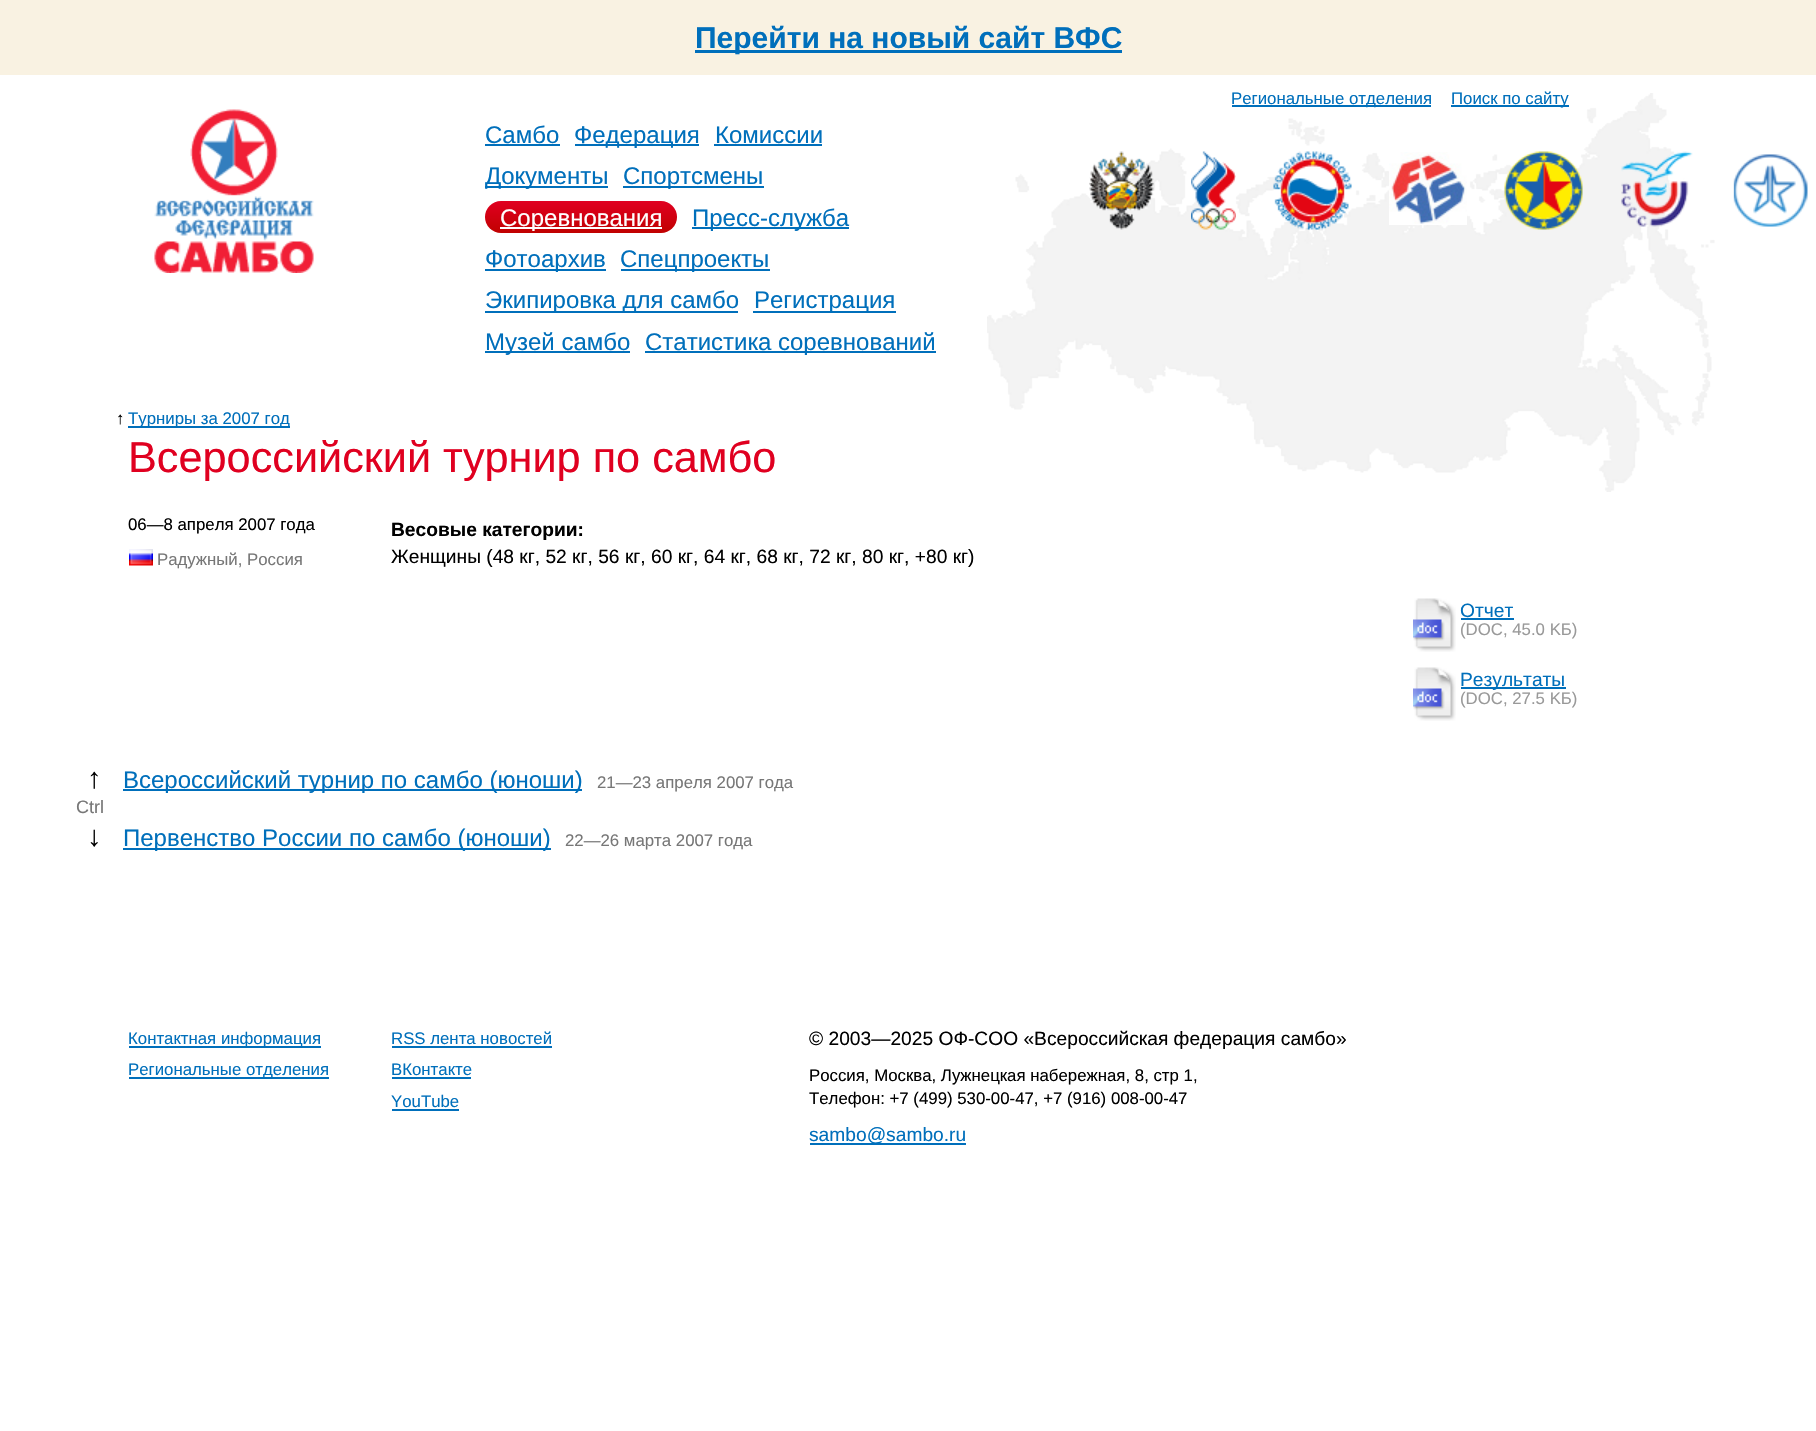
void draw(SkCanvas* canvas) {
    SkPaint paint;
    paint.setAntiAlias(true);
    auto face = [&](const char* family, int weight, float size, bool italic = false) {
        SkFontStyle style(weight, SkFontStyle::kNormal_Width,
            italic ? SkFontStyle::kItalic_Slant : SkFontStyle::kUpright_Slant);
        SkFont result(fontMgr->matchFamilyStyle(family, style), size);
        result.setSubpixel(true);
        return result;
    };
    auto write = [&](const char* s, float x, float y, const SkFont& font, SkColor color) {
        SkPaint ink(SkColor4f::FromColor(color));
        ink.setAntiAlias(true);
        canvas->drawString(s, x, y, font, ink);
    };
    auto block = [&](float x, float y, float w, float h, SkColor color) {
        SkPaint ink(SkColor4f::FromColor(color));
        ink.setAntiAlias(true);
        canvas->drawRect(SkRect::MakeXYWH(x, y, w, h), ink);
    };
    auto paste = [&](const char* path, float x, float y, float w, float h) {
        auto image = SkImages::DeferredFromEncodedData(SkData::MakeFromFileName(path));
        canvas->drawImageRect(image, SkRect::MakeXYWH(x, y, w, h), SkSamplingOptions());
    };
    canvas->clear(SK_ColorWHITE);
    block(0, 0, 1816, 75, SkColorSetRGB(249, 242, 226));
    block(695, 50, 427, 3, SkColorSetRGB(0, 111, 187));
    auto kFont1 = face("Liberation Sans", 700, 30);
    write("Перейти на новый сайт ВФС", 695, 48, kFont1, SkColorSetRGB(0, 111, 187));
    paste("pic1.png", 987, 93, 728, 399);
    block(1232, 105, 199, 2, SkColorSetRGB(0, 111, 187));
    auto kFont2 = face("Liberation Sans", 400, 16.8f);
    write("Региональные отделения", 1231, 104, kFont2, SkColorSetRGB(0, 111, 187));
    block(1451, 105, 118, 2, SkColorSetRGB(0, 111, 187));
    write("Поиск по сайту", 1451, 104, kFont2, SkColorSetRGB(0, 111, 187));
    paste("pic2.png", 154, 109, 160, 164);
    auto kFont3 = face("Liberation Sans", 400, 24);
    write("Самбо", 485, 143, kFont3, SkColorSetRGB(0, 111, 187));
    block(485, 144, 75, 2, SkColorSetRGB(0, 111, 187));
    block(575, 144, 124, 2, SkColorSetRGB(0, 111, 187));
    write("Федерация", 574, 143, kFont3, SkColorSetRGB(0, 111, 187));
    write("Комиссии", 715, 143, kFont3, SkColorSetRGB(0, 111, 187));
    block(714, 144, 108, 2, SkColorSetRGB(0, 111, 187));
    block(485, 186, 123, 2, SkColorSetRGB(0, 111, 187));
    write("Документы", 485, 184, kFont3, SkColorSetRGB(0, 111, 187));
    block(623, 186, 141, 2, SkColorSetRGB(0, 111, 187));
    write("Спортсмены", 623, 184, kFont3, SkColorSetRGB(0, 111, 187));
    {
        const SkColor colors[] = {SkColorSetRGB(224, 0, 32), SkColorSetRGB(192, 1, 1)};
        const float stops[] = {0, 1};
        const SkPoint ends[] = {{485, 201}, {485, 233}};
        paint.setShader(SkGradientShader::MakeLinear(ends, colors, stops, 2, SkTileMode::kClamp));
        paint.setAlpha(255);
    }
    canvas->drawRoundRect(SkRect::MakeXYWH(485, 201, 192, 32), 16, 16, paint);
    block(500, 227, 162, 2, SK_ColorWHITE);
    write("Соревнования", 500, 226, kFont3, SK_ColorWHITE);
    block(692, 227, 157, 2, SkColorSetRGB(0, 111, 187));
    write("Пресс-служба", 692, 226, kFont3, SkColorSetRGB(0, 111, 187));
    block(485, 269, 121, 2, SkColorSetRGB(0, 111, 187));
    write("Фотоархив", 485, 267, kFont3, SkColorSetRGB(0, 111, 187));
    block(621, 269, 149, 2, SkColorSetRGB(0, 111, 187));
    write("Спецпроекты", 620, 267, kFont3, SkColorSetRGB(0, 111, 187));
    block(485, 311, 253, 2, SkColorSetRGB(0, 111, 187));
    write("Экипировка для самбо", 485, 308, kFont3, SkColorSetRGB(0, 111, 187));
    block(753, 311, 143, 2, SkColorSetRGB(0, 111, 187));
    write("Регистрация", 754, 308, kFont3, SkColorSetRGB(0, 111, 187));
    block(485, 351, 145, 2, SkColorSetRGB(0, 111, 187));
    write("Музей самбо", 485, 350, kFont3, SkColorSetRGB(0, 111, 187));
    block(645, 351, 291, 2, SkColorSetRGB(0, 111, 187));
    write("Статистика соревнований", 645, 350, kFont3, SkColorSetRGB(0, 111, 187));
    paste("pic3.png", 1089, 151, 65, 79);
    paste("pic4.png", 1191, 151, 45, 79);
    paste("pic5.png", 1273, 151, 79, 79);
    paste("pic6.png", 1389, 152, 78, 73);
    paste("pic7.png", 1504, 151, 79, 79);
    paste("pic8.png", 1621, 151, 72, 76);
    paste("pic9.png", 1733, 154, 75, 73);
    write("↑", 116, 424, kFont2, SK_ColorBLACK);
    block(128, 426, 162, 2, SkColorSetRGB(0, 111, 187));
    write("Турниры за 2007 год", 128, 424, kFont2, SkColorSetRGB(0, 111, 187));
    auto kFont4 = face("Liberation Sans", 400, 43.25f);
    write("Всероссийский турнир по самбо", 128, 472, kFont4, SkColorSetRGB(224, 0, 32));
    write("06—8 апреля 2007 года", 128, 530, kFont2, SK_ColorBLACK);
    paste("pic10.png", 129, 549, 24, 17);
    write("Радужный, Россия", 157, 565, kFont2, SkColorSetRGB(119, 119, 119));
    auto kFont5 = face("Liberation Sans", 700, 19.2f);
    write("Весовые категории:", 391, 536, kFont5, SK_ColorBLACK);
    auto kFont6 = face("Liberation Sans", 400, 19.2f);
    write("Женщины (48 кг, 52 кг, 56 кг, 60 кг, 64 кг, 68 кг, 72 кг, 80 кг, +80 кг)", 391, 563, kFont6, SK_ColorBLACK);
    paste("pic11.png", 1413, 598, 43, 54);
    write("Отчет", 1460, 617, kFont6, SkColorSetRGB(0, 111, 187));
    block(1461, 618, 53, 2, SkColorSetRGB(0, 111, 187));
    write("(DOC, 45.0 KБ)", 1460, 635, kFont2, SkColorSetRGB(153, 153, 153));
    paste("pic11.png", 1413, 667, 43, 54);
    block(1461, 687, 105, 2, SkColorSetRGB(0, 111, 187));
    write("Результаты", 1460, 686, kFont6, SkColorSetRGB(0, 111, 187));
    write("(DOC, 27.5 KБ)", 1460, 704, kFont2, SkColorSetRGB(153, 153, 153));
    auto kFont7 = face("Liberation Sans", 400, 29);
    write("↑", 87, 788, kFont7, SK_ColorBLACK);
    block(123, 789, 459, 2, SkColorSetRGB(0, 111, 187));
    write("Всероссийский турнир по самбо (юноши)", 123, 788, kFont3, SkColorSetRGB(0, 111, 187));
    write("21—23 апреля 2007 года", 597, 788, kFont2, SkColorSetRGB(119, 119, 119));
    auto kFont8 = face("Liberation Sans", 400, 18);
    write("Ctrl", 76, 813, kFont8, SkColorSetRGB(119, 119, 119));
    write("↓", 87, 846, kFont7, SK_ColorBLACK);
    block(123, 848, 428, 2, SkColorSetRGB(0, 111, 187));
    write("Первенство России по самбо (юноши)", 123, 846, kFont3, SkColorSetRGB(0, 111, 187));
    write("22—26 марта 2007 года", 565, 846, kFont2, SkColorSetRGB(119, 119, 119));
    block(129, 1046, 192, 2, SkColorSetRGB(0, 111, 187));
    write("Контактная информация", 128, 1044, kFont2, SkColorSetRGB(0, 111, 187));
    block(129, 1077, 200, 2, SkColorSetRGB(0, 111, 187));
    write("Региональные отделения", 128, 1075, kFont2, SkColorSetRGB(0, 111, 187));
    write("RSS лента новостей", 391, 1044, kFont2, SkColorSetRGB(0, 111, 187));
    block(392, 1046, 160, 2, SkColorSetRGB(0, 111, 187));
    write("ВКонтакте", 391, 1075, kFont2, SkColorSetRGB(0, 111, 187));
    block(392, 1077, 79, 2, SkColorSetRGB(0, 111, 187));
    write("YouTube", 391, 1107, kFont2, SkColorSetRGB(0, 111, 187));
    block(392, 1109, 67, 2, SkColorSetRGB(0, 111, 187));
    write("© 2003—2025 ОФ-СОО «Всероссийская федерация самбо»", 809, 1045, kFont6, SK_ColorBLACK);
    write("Россия, Москва, Лужнецкая набережная, 8, стр 1,", 809, 1081, kFont2, SK_ColorBLACK);
    write("Телефон: +7 (499) 530-00-47, +7 (916) 008-00-47", 809, 1104, kFont2, SK_ColorBLACK);
    block(810, 1143, 156, 2, SkColorSetRGB(0, 111, 187));
    write("sambo@sambo.ru", 809, 1141, kFont6, SkColorSetRGB(0, 111, 187));
}
